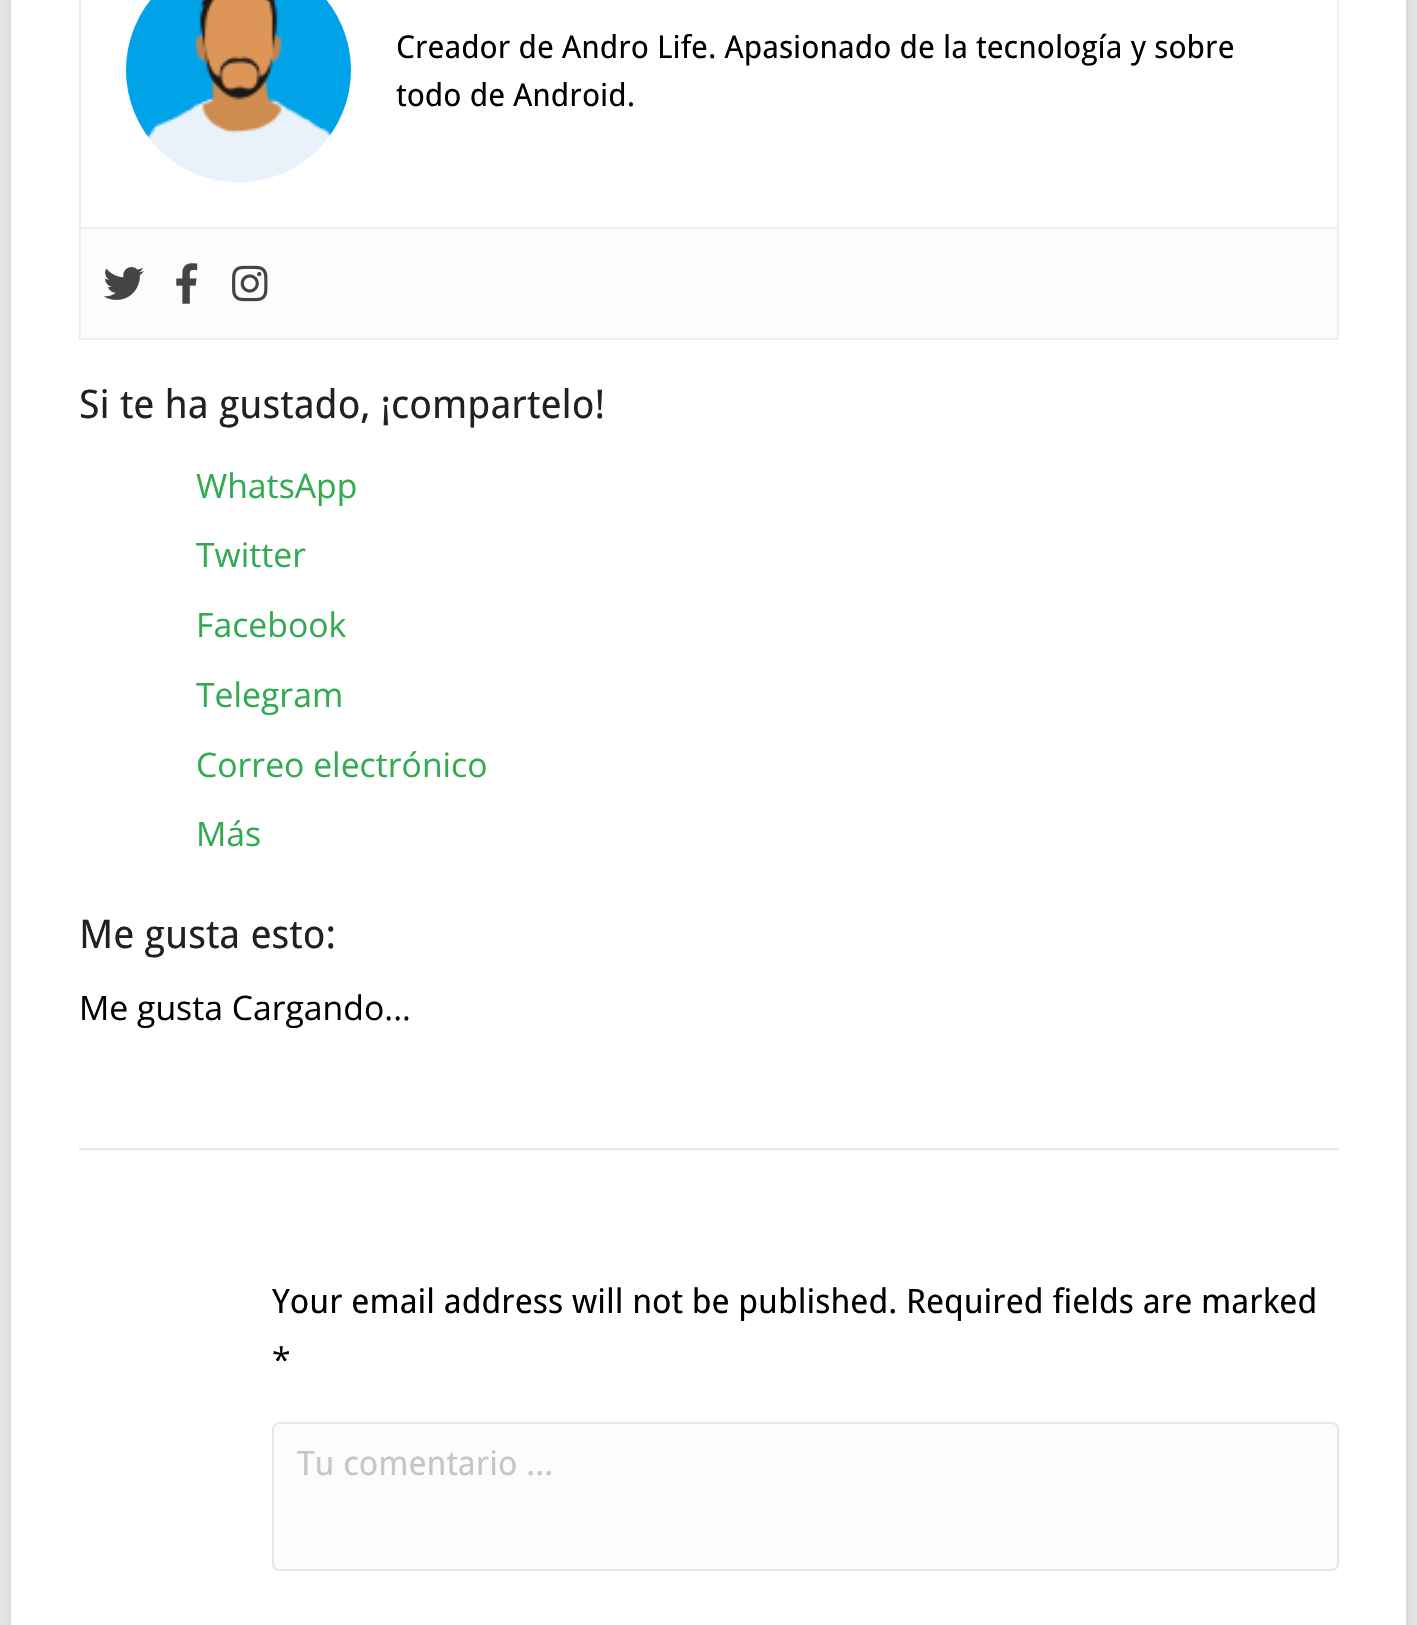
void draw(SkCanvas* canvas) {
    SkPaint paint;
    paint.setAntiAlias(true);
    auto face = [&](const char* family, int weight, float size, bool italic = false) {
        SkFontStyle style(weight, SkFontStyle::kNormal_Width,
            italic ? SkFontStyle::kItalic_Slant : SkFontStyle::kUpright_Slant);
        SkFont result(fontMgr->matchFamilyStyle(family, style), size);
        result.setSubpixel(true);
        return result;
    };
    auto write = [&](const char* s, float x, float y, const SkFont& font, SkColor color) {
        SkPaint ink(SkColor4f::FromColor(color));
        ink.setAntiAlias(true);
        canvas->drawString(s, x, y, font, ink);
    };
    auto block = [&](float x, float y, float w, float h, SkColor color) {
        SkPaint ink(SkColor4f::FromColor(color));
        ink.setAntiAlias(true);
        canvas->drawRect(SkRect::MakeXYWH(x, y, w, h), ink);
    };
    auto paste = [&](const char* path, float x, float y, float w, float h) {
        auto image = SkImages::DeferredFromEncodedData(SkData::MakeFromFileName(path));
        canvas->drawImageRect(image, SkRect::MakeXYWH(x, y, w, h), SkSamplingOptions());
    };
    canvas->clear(SkColorSetRGB(229, 229, 229));
    paint.setColor(SkColorSetARGB(26, 0, 0, 0));
    paint.setMaskFilter(SkMaskFilter::MakeBlur(kNormal_SkBlurStyle, 4.5f));
    canvas->drawRoundRect(SkRect::MakeXYWH(11, -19, 1395, 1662), 5, 5, paint);
    paint.setMaskFilter(nullptr);
    block(11, 0, 1395, 1625, SK_ColorWHITE);
    paint.setStyle(SkPaint::kStroke_Style);
    paint.setStrokeWidth(2);
    paint.setColor(SkColorSetRGB(238, 238, 238));
    canvas->drawRect(SkRect::MakeXYWH(80, -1, 1258, 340), paint);
    paste("pic1.png", 126, 0, 225, 183);
    auto kFont1 = face("Droid Sans", 400, 31.5f);
    write("Creador de Andro Life. Apasionado de la tecnología y sobre", 396, 58, kFont1, SK_ColorBLACK);
    write("todo de Android.", 396, 106, kFont1, SK_ColorBLACK);
    block(81, 229, 1256, 109, SkColorSetRGB(252, 252, 252));
    block(81, 227, 1256, 2, SkColorSetRGB(238, 238, 238));
    paste("pic2.png", 104, 267, 40, 33);
    paste("pic3.png", 176, 263, 22, 41);
    paste("pic4.png", 232, 265, 36, 37);
    auto kFont2 = face("Droid Sans", 400, 39.4f);
    write("Si te ha gustado, ¡compartelo!", 79, 418, kFont2, SkColorSetRGB(33, 33, 33));
    auto kFont3 = face("Open Sans", 400, 33.75f);
    write("WhatsApp", 196, 498, kFont3, SkColorSetRGB(49, 170, 82));
    write("Twitter", 196, 567, kFont3, SkColorSetRGB(49, 170, 82));
    write("Facebook", 196, 637, kFont3, SkColorSetRGB(49, 170, 82));
    write("Telegram", 196, 707, kFont3, SkColorSetRGB(49, 170, 82));
    write("Correo electrónico", 196, 777, kFont3, SkColorSetRGB(49, 170, 82));
    write("Más", 196, 846, kFont3, SkColorSetRGB(49, 170, 82));
    write("Me gusta esto:", 79, 948, kFont2, SkColorSetRGB(33, 33, 33));
    write("Me gusta Cargando...", 79, 1020, kFont3, SK_ColorBLACK);
    block(79, 1148, 1260, 2, SkColorSetRGB(231, 231, 231));
    auto kFont4 = face("Droid Sans", 400, 33.75f);
    write("Your email address will not be published. Required fields are marked", 272, 1313, kFont4, SK_ColorBLACK);
    write("*", 272, 1372, kFont3, SK_ColorBLACK);
    paint.setStyle(SkPaint::kFill_Style);
    paint.setColor(SkColorSetRGB(252, 252, 252));
    canvas->drawRoundRect(SkRect::MakeXYWH(273, 1423, 1065, 147), 6, 6, paint);
    paint.setStyle(SkPaint::kStroke_Style);
    paint.setColor(SkColorSetRGB(231, 231, 231));
    canvas->drawRoundRect(SkRect::MakeXYWH(273, 1423, 1065, 147), 6, 6, paint);
    write("Tu comentario ...", 297, 1475, kFont4, SkColorSetRGB(198, 198, 198));
}
